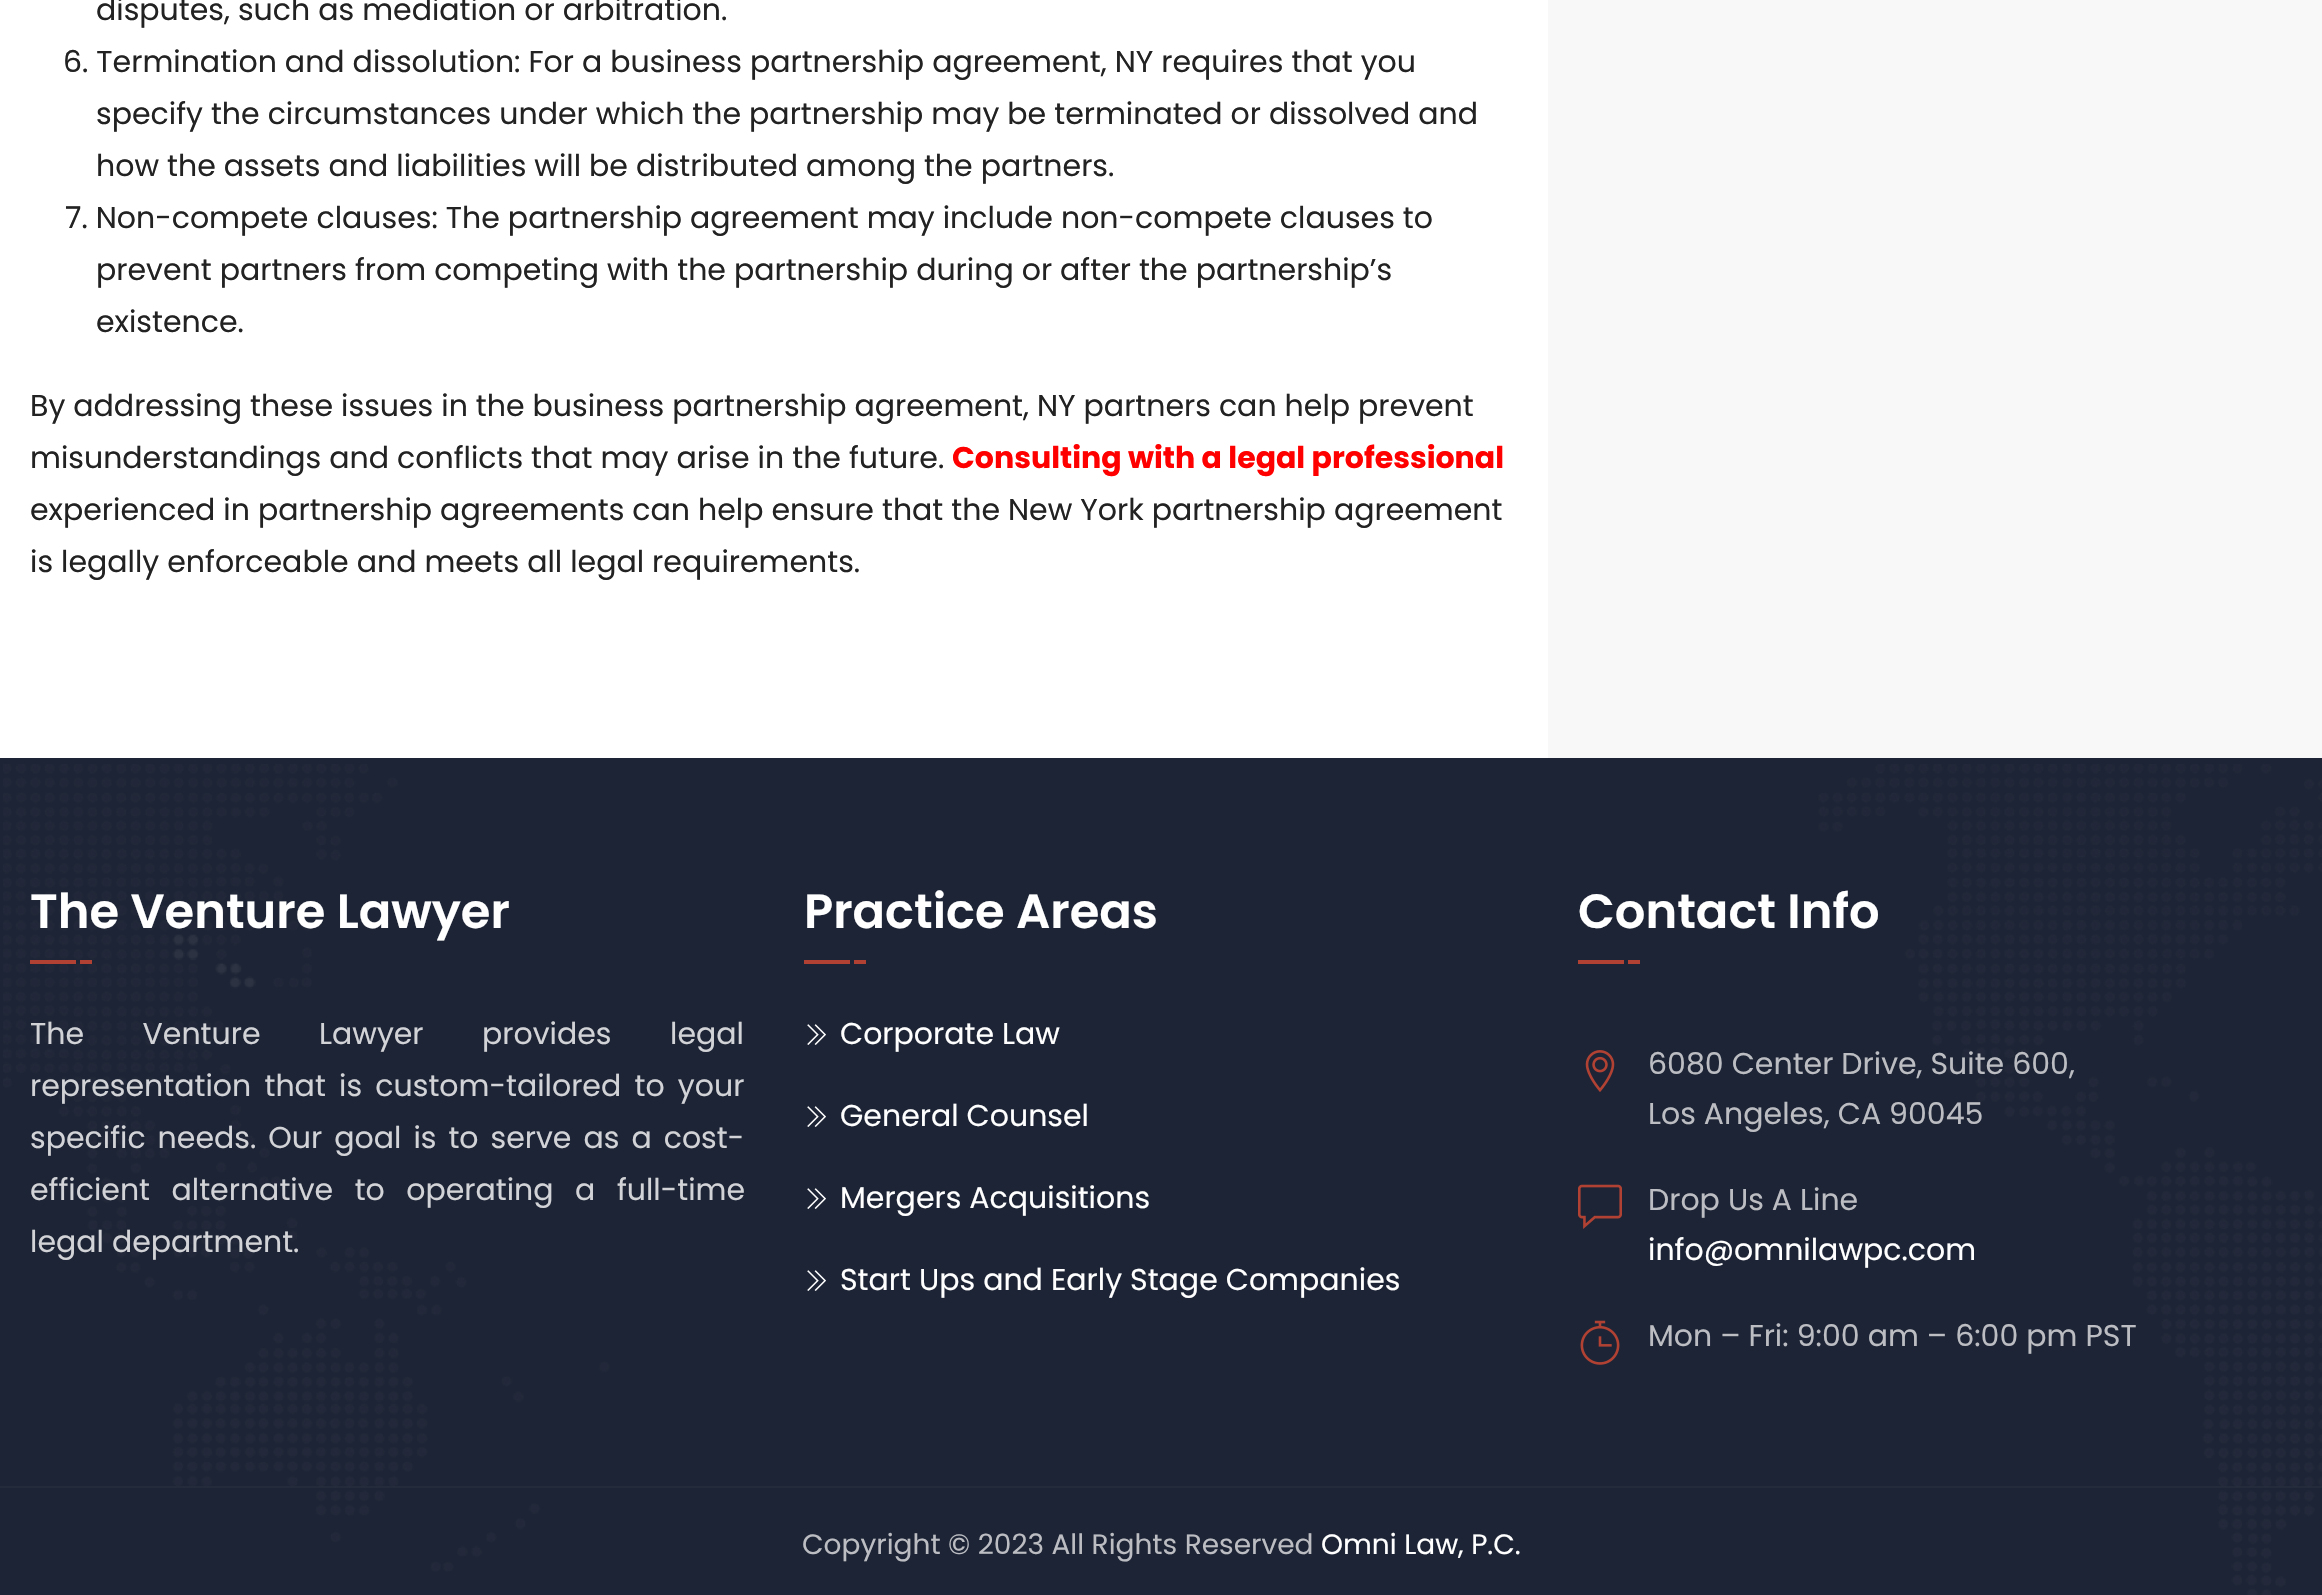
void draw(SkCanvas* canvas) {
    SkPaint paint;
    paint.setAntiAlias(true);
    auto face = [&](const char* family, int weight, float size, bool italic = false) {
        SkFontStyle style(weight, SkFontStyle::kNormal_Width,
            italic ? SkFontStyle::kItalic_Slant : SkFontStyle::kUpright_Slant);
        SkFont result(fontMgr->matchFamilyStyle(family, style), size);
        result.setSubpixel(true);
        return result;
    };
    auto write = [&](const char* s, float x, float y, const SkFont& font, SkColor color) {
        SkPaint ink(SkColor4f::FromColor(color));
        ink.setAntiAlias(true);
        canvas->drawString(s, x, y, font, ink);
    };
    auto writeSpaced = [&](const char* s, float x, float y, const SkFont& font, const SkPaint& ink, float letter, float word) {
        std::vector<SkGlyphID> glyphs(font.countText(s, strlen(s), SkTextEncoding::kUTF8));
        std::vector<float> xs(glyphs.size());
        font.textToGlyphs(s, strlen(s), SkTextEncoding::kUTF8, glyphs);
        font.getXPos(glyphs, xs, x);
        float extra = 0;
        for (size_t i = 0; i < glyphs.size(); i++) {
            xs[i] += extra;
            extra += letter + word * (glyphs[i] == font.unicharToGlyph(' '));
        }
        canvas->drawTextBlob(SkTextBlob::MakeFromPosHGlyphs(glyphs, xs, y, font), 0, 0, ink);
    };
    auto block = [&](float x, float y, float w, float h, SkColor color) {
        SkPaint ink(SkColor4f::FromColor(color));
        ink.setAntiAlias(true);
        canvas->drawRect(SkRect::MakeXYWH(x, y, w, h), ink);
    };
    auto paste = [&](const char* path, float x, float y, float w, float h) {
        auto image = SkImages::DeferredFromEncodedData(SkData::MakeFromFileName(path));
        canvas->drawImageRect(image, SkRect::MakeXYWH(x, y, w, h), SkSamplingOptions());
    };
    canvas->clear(SK_ColorWHITE);
    auto kFont1 = face("Poppins", 400, 30);
    write("disputes, such as mediation or arbitration.", 96, 20, kFont1, SkColorSetRGB(34, 34, 34));
    write("6. Termination and dissolution: For a business partnership agreement, NY requires that you", 63, 72, kFont1, SkColorSetRGB(34, 34, 34));
    write("specify the circumstances under which the partnership may be terminated or dissolved and", 96, 124, kFont1, SkColorSetRGB(34, 34, 34));
    write("how the assets and liabilities will be distributed among the partners.", 96, 176, kFont1, SkColorSetRGB(34, 34, 34));
    write("7. Non-compete clauses: The partnership agreement may include non-compete clauses to", 65, 228, kFont1, SkColorSetRGB(34, 34, 34));
    write("prevent partners from competing with the partnership during or after the partnership’s", 96, 280, kFont1, SkColorSetRGB(34, 34, 34));
    write("existence.", 96, 332, kFont1, SkColorSetRGB(34, 34, 34));
    write("By addressing these issues in the business partnership agreement, NY partners can help prevent", 30, 416, kFont1, SkColorSetRGB(34, 34, 34));
    write("misunderstandings and conflicts that may arise in the future.", 30, 468, kFont1, SkColorSetRGB(34, 34, 34));
    auto kFont2 = face("Poppins", 700, 30);
    write("Consulting with a legal professional", 952, 468, kFont2, SkColorSetRGB(255, 0, 0));
    write("experienced in partnership agreements can help ensure that the New York partnership agreement", 30, 520, kFont1, SkColorSetRGB(34, 34, 34));
    write("is legally enforceable and meets all legal requirements.", 30, 572, kFont1, SkColorSetRGB(34, 34, 34));
    block(1548, 0, 774, 758, SkColorSetRGB(248, 248, 248));
    block(0, 758, 2322, 837, SkColorSetRGB(29, 36, 53));
    block(0, 1486, 2322, 2, SkColorSetRGB(36, 43, 59));
    paste("pic1.png", 3, 764, 2319, 831);
    auto kFont3 = face("Poppins", 600, 48);
    write("The Venture Lawyer", 30, 928, kFont3, SK_ColorWHITE);
    block(30, 960, 46, 4, SkColorSetRGB(177, 66, 51));
    block(80, 960, 12, 4, SkColorSetRGB(177, 66, 51));
    paint.setColor(SkColorSetRGB(210, 211, 215));
    writeSpaced("The Venture Lawyer provides legal", 30, 1044, kFont1, paint, 0, 50.5f);
    writeSpaced("representation that is custom-tailored to your", 30, 1096, kFont1, paint, 0, 5.25f);
    writeSpaced("specific needs. Our goal is to serve as a cost-", 30, 1148, kFont1, paint, 0, 4);
    writeSpaced("efficient alternative to operating a full-time", 30, 1200, kFont1, paint, 0, 13.5f);
    write("legal department.", 30, 1252, kFont1, SkColorSetRGB(210, 211, 215));
    write("Practice Areas", 804, 928, kFont3, SK_ColorWHITE);
    block(804, 960, 46, 4, SkColorSetRGB(177, 66, 51));
    block(854, 960, 12, 4, SkColorSetRGB(177, 66, 51));
    paste("pic2.png", 807, 1024, 19, 21);
    write("Corporate Law", 840, 1044, kFont1, SK_ColorWHITE);
    paste("pic2.png", 807, 1106, 19, 21);
    write("General Counsel", 840, 1126, kFont1, SK_ColorWHITE);
    paste("pic2.png", 807, 1188, 19, 21);
    write("Mergers Acquisitions", 840, 1208, kFont1, SK_ColorWHITE);
    paste("pic2.png", 807, 1270, 19, 21);
    write("Start Ups and Early Stage Companies", 840, 1290, kFont1, SK_ColorWHITE);
    write("Contact Info", 1578, 928, kFont3, SK_ColorWHITE);
    block(1578, 960, 46, 4, SkColorSetRGB(177, 66, 51));
    block(1628, 960, 12, 4, SkColorSetRGB(177, 66, 51));
    paste("pic3.png", 1585, 1050, 30, 42);
    write("6080 Center Drive, Suite 600,", 1648, 1074, kFont1, SkColorSetRGB(187, 189, 194));
    write("Los Angeles, CA 90045", 1648, 1124, kFont1, SkColorSetRGB(187, 189, 194));
    paste("pic4.png", 1578, 1184, 44, 45);
    write("Drop Us A Line", 1648, 1210, kFont1, SkColorSetRGB(187, 189, 194));
    write("info@omnilawpc.com", 1648, 1260, kFont1, SK_ColorWHITE);
    paste("pic5.png", 1580, 1320, 40, 45);
    write("Mon – Fri: 9:00 am – 6:00 pm PST", 1648, 1346, kFont1, SkColorSetRGB(187, 189, 194));
    auto kFont4 = face("Poppins", 400, 28);
    write("Copyright © 2023 All Rights Reserved", 802, 1554, kFont4, SkColorSetRGB(187, 189, 194));
    write("Omni Law, P.C.", 1321, 1554, kFont4, SK_ColorWHITE);
}
